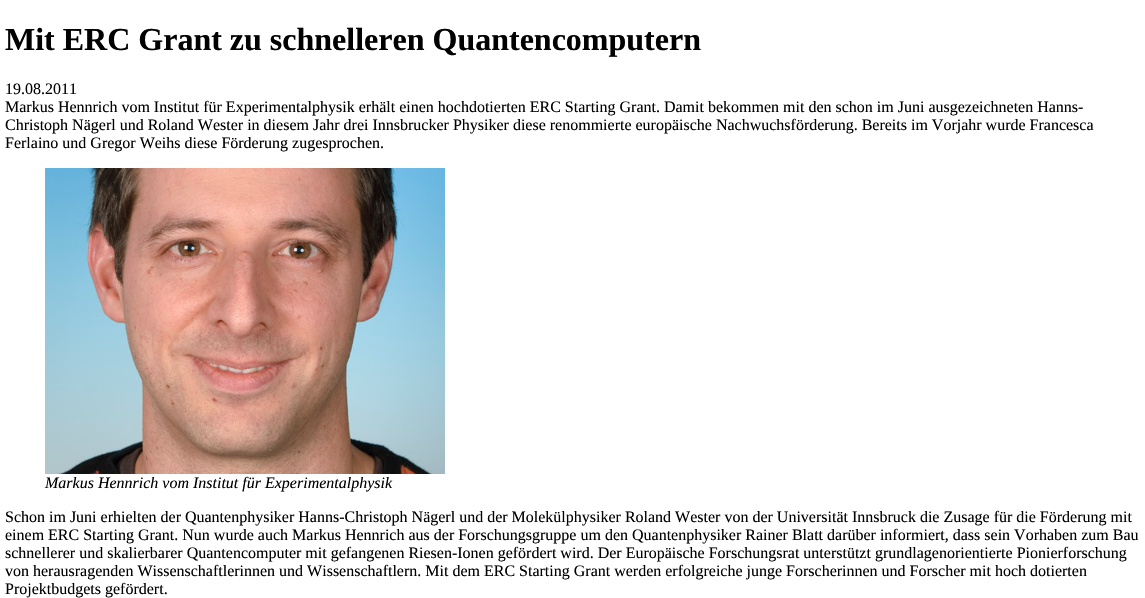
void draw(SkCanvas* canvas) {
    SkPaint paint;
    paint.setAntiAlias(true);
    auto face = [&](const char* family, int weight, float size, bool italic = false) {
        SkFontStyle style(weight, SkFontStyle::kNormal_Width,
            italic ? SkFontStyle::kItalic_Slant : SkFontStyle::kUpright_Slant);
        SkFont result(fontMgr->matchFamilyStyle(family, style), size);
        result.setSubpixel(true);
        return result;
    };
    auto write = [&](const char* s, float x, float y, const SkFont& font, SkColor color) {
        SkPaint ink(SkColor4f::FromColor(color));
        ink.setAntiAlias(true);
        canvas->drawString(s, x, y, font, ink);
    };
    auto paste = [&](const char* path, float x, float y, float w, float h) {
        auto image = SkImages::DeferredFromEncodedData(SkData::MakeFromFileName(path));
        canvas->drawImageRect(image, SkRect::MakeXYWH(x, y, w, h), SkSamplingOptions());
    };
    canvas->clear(SK_ColorWHITE);
    auto kFont1 = face("Liberation Serif", 700, 32);
    write("Mit ERC Grant zu schnelleren Quantencomputern", 5, 50, kFont1, SK_ColorBLACK);
    auto kFont2 = face("Liberation Serif", 400, 16);
    write("19.08.2011", 5, 94, kFont2, SK_ColorBLACK);
    write("Markus Hennrich vom Institut für Experimentalphysik erhält einen hochdotierten ERC Starting Grant. Damit bekommen mit den schon im Juni ausgezeichneten Hanns-", 5, 112, kFont2, SK_ColorBLACK);
    write("Christoph Nägerl und Roland Wester in diesem Jahr drei Innsbrucker Physiker diese renommierte europäische Nachwuchsförderung. Bereits im Vorjahr wurde Francesca", 5, 130, kFont2, SK_ColorBLACK);
    write("Ferlaino und Gregor Weihs diese Förderung zugesprochen.", 5, 148, kFont2, SK_ColorBLACK);
    paste("pic1.png", 45, 168, 400, 306);
    auto kFont3 = face("Liberation Serif", 400, 16, true);
    write("Markus Hennrich vom Institut für Experimentalphysik", 45, 488, kFont3, SK_ColorBLACK);
    write("Schon im Juni erhielten der Quantenphysiker Hanns-Christoph Nägerl und der Molekülphysiker Roland Wester von der Universität Innsbruck die Zusage für die Förderung mit", 5, 522, kFont2, SK_ColorBLACK);
    write("einem ERC Starting Grant. Nun wurde auch Markus Hennrich aus der Forschungsgruppe um den Quantenphysiker Rainer Blatt darüber informiert, dass sein Vorhaben zum Bau", 5, 540, kFont2, SK_ColorBLACK);
    write("schnellerer und skalierbarer Quantencomputer mit gefangenen Riesen-Ionen gefördert wird. Der Europäische Forschungsrat unterstützt grundlagenorientierte Pionierforschung", 5, 558, kFont2, SK_ColorBLACK);
    write("von herausragenden Wissenschaftlerinnen und Wissenschaftlern. Mit dem ERC Starting Grant werden erfolgreiche junge Forscherinnen und Forscher mit hoch dotierten", 5, 576, kFont2, SK_ColorBLACK);
    write("Projektbudgets gefördert.", 5, 594, kFont2, SK_ColorBLACK);
}
